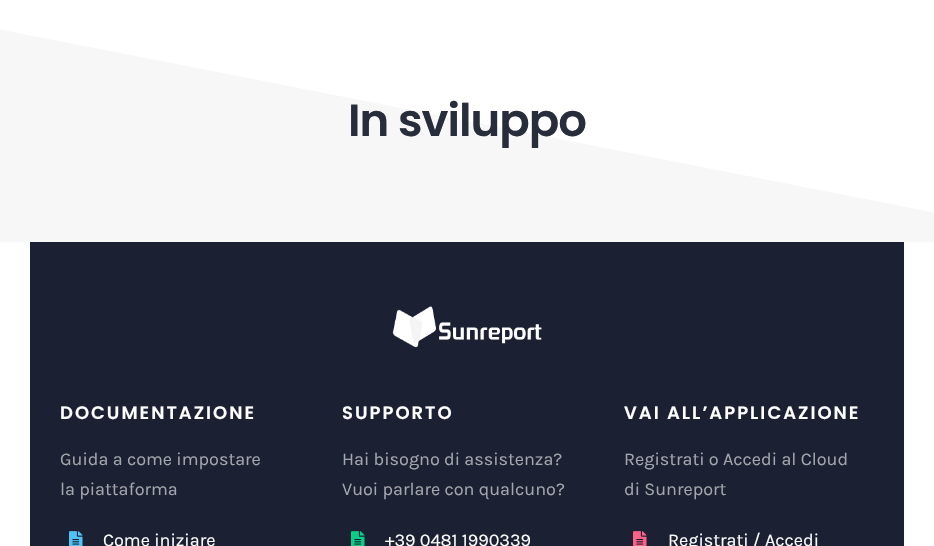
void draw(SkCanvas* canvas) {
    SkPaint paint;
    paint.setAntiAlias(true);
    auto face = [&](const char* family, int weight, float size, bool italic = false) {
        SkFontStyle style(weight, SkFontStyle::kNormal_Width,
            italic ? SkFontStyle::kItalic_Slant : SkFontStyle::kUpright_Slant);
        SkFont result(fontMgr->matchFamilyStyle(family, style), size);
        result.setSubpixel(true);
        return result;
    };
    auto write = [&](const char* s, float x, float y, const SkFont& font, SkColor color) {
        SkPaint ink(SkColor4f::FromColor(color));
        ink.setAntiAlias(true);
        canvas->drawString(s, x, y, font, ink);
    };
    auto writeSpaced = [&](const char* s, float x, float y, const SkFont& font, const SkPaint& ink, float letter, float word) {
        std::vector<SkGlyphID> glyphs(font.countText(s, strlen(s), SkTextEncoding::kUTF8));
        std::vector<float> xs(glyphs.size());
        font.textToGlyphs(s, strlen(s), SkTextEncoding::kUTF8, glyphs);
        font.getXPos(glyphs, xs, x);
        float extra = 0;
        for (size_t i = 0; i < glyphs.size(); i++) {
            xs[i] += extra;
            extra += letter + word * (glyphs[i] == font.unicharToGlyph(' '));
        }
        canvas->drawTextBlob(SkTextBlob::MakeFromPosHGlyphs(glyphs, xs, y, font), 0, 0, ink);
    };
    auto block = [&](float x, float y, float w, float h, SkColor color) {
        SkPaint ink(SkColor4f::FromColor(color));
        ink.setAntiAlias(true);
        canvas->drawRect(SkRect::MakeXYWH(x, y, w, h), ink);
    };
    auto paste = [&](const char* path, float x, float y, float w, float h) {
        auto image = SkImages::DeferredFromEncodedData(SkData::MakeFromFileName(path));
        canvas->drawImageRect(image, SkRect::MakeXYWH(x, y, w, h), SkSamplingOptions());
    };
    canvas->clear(SK_ColorWHITE);
    paint.setColor(SkColorSetRGB(247, 247, 247));
    canvas->drawPath(SkPathBuilder(SkPathFillType::kEvenOdd).moveTo(-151, 0).lineTo(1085, 242).lineTo(-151, 242).close().detach(), paint);
    auto kFont1 = face("Poppins", 600, 45);
    paint.setColor(SkColorSetRGB(39, 45, 58));
    writeSpaced("In sviluppo", 348, 136, kFont1, paint, -1, 0);
    block(30, 242, 874, 304, SkColorSetRGB(27, 32, 50));
    paste("pic1.png", 392, 306, 150, 42);
    auto kFont2 = face("Poppins", 600, 18);
    paint.setColor(SK_ColorWHITE);
    writeSpaced("DOCUMENTAZIONE", 60, 419, kFont2, paint, 2, 0);
    auto kFont3 = face("Karla", 400, 18);
    write("Guida a come impostare", 60, 465, kFont3, SkColorSetRGB(164, 166, 173));
    write("la piattaforma", 60, 495, kFont3, SkColorSetRGB(164, 166, 173));
    paste("pic2.png", 69, 531, 14, 15);
    write("Come iniziare", 103, 546, kFont3, SK_ColorWHITE);
    writeSpaced("SUPPORTO", 342, 419, kFont2, paint, 2, 0);
    write("Hai bisogno di assistenza?", 342, 465, kFont3, SkColorSetRGB(164, 166, 173));
    write("Vuoi parlare con qualcuno?", 342, 495, kFont3, SkColorSetRGB(164, 166, 173));
    paste("pic3.png", 351, 531, 14, 15);
    write("+39 0481 1990339", 385, 546, kFont3, SK_ColorWHITE);
    writeSpaced("VAI ALL’APPLICAZIONE", 624, 419, kFont2, paint, 2, 0);
    write("Registrati o Accedi al Cloud", 624, 465, kFont3, SkColorSetRGB(164, 166, 173));
    write("di Sunreport", 624, 495, kFont3, SkColorSetRGB(164, 166, 173));
    paste("pic4.png", 633, 531, 14, 15);
    write("Registrati / Accedi", 668, 546, kFont3, SK_ColorWHITE);
}
